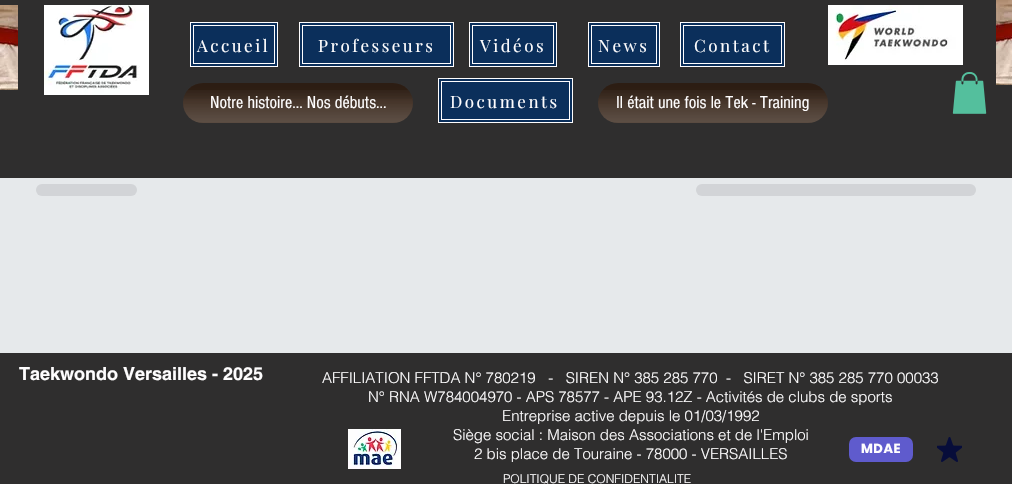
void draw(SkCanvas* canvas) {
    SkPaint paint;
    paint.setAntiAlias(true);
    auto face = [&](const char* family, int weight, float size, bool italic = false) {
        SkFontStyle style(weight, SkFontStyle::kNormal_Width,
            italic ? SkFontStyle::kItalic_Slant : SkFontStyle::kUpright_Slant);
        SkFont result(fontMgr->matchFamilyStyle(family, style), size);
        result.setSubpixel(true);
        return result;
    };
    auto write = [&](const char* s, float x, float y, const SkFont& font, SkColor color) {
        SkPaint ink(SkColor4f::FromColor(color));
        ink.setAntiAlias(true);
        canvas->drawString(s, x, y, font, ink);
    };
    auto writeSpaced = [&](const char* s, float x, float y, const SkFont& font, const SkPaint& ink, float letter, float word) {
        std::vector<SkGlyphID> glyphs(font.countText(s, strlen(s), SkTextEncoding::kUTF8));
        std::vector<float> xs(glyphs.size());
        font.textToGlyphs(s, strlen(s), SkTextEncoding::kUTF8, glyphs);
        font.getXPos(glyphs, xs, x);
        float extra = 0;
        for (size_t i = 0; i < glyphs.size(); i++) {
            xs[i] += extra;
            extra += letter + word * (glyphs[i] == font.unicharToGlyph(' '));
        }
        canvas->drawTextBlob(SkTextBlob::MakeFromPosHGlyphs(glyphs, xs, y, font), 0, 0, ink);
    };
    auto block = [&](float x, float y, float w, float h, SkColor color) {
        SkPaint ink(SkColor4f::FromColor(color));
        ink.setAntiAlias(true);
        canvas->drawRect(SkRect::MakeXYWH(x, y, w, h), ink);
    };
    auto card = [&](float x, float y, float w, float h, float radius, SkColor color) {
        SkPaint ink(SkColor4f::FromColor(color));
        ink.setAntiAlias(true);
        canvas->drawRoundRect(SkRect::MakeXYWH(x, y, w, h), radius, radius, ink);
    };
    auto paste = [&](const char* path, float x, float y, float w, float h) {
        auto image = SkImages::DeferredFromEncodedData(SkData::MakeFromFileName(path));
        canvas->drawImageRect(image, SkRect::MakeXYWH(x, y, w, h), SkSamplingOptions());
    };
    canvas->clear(SkColorSetRGB(230, 233, 235));
    block(0, 0, 1012, 178, SkColorSetRGB(47, 46, 46));
    paste("pic1.png", 0, 5, 18, 85);
    paste("pic2.png", 44, 5, 105, 90);
    paint.setColor(SkColorSetRGB(11, 47, 91));
    canvas->drawRect(SkRect::MakeXYWH(190.5f, 22.5f, 87, 44), paint);
    paint.setStyle(SkPaint::kStroke_Style);
    paint.setStrokeWidth(1);
    paint.setColor(SkColorSetRGB(254, 253, 254));
    canvas->drawRect(SkRect::MakeXYWH(190.5f, 22.5f, 87, 44), paint);
    canvas->drawRect(SkRect::MakeXYWH(193.5f, 25.5f, 81, 38), paint);
    auto kFont1 = face("Playfair Display", 400, 17);
    paint.setStyle(SkPaint::kFill_Style);
    writeSpaced("Accueil", 197, 52, kFont1, paint, 2.5f, 0);
    paint.setColor(SkColorSetRGB(11, 47, 91));
    canvas->drawRect(SkRect::MakeXYWH(299.5f, 22.5f, 154, 44), paint);
    paint.setStyle(SkPaint::kStroke_Style);
    paint.setColor(SkColorSetRGB(254, 253, 254));
    canvas->drawRect(SkRect::MakeXYWH(299.5f, 22.5f, 154, 44), paint);
    canvas->drawRect(SkRect::MakeXYWH(302.5f, 25.5f, 148, 38), paint);
    paint.setStyle(SkPaint::kFill_Style);
    writeSpaced("Professeurs", 318, 52, kFont1, paint, 2.5f, 0);
    paint.setColor(SkColorSetRGB(11, 47, 91));
    canvas->drawRect(SkRect::MakeXYWH(469.5f, 22.5f, 87, 44), paint);
    paint.setStyle(SkPaint::kStroke_Style);
    paint.setColor(SkColorSetRGB(254, 253, 254));
    canvas->drawRect(SkRect::MakeXYWH(469.5f, 22.5f, 87, 44), paint);
    canvas->drawRect(SkRect::MakeXYWH(472.5f, 25.5f, 81, 38), paint);
    paint.setStyle(SkPaint::kFill_Style);
    writeSpaced("Vidéos", 480, 52, kFont1, paint, 2.5f, 0);
    paint.setColor(SkColorSetRGB(11, 47, 91));
    canvas->drawRect(SkRect::MakeXYWH(588.5f, 22.5f, 71, 44), paint);
    paint.setStyle(SkPaint::kStroke_Style);
    paint.setColor(SkColorSetRGB(254, 253, 254));
    canvas->drawRect(SkRect::MakeXYWH(588.5f, 22.5f, 71, 44), paint);
    canvas->drawRect(SkRect::MakeXYWH(591.5f, 25.5f, 65, 38), paint);
    paint.setStyle(SkPaint::kFill_Style);
    writeSpaced("News", 598, 52, kFont1, paint, 2.5f, 0);
    paint.setColor(SkColorSetRGB(11, 47, 91));
    canvas->drawRect(SkRect::MakeXYWH(680.5f, 22.5f, 104, 44), paint);
    paint.setStyle(SkPaint::kStroke_Style);
    paint.setColor(SkColorSetRGB(254, 253, 254));
    canvas->drawRect(SkRect::MakeXYWH(680.5f, 22.5f, 104, 44), paint);
    canvas->drawRect(SkRect::MakeXYWH(683.5f, 25.5f, 98, 38), paint);
    paint.setStyle(SkPaint::kFill_Style);
    writeSpaced("Contact", 694, 52, kFont1, paint, 2.5f, 0);
    card(183, 83, 230, 40, 20, SkColorSetRGB(52, 34, 22));
    paste("pic3.png", 184, 83, 228, 16);
    paste("pic4.png", 183, 90, 230, 33);
    auto kFont2 = face("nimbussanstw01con", 400, 18);
    write("Notre histoire... Nos débuts...", 210, 108, kFont2, SkColorSetRGB(254, 253, 254));
    paint.setColor(SkColorSetRGB(11, 47, 91));
    canvas->drawRect(SkRect::MakeXYWH(438.5f, 78.5f, 134, 44), paint);
    paint.setStyle(SkPaint::kStroke_Style);
    paint.setColor(SkColorSetRGB(254, 253, 254));
    canvas->drawRect(SkRect::MakeXYWH(438.5f, 78.5f, 134, 44), paint);
    canvas->drawRect(SkRect::MakeXYWH(441.5f, 81.5f, 128, 38), paint);
    paint.setStyle(SkPaint::kFill_Style);
    writeSpaced("Documents", 450, 108, kFont1, paint, 2.5f, 0);
    card(598, 83, 230, 40, 20, SkColorSetRGB(52, 34, 22));
    paste("pic3.png", 599, 83, 228, 16);
    paste("pic4.png", 598, 90, 230, 33);
    write("Il était une fois le Tek - Training", 616, 108, kFont2, SkColorSetRGB(254, 253, 254));
    paste("pic5.png", 828, 5, 135, 60);
    paste("pic6.png", 952, 72, 35, 42);
    paste("pic7.png", 996, 0, 16, 85);
    {
        const SkColor colors[] = {SkColorSetRGB(210, 212, 215), SkColorSetRGB(190, 192, 195), SkColorSetRGB(210, 212, 215)};
        const float stops[] = {0.25f, 0.37f, 0.63f};
        const SkPoint ends[] = {{36, 190}, {440, 190}};
        paint.setShader(SkGradientShader::MakeLinear(ends, colors, stops, 3, SkTileMode::kClamp));
        paint.setAlpha(255);
    }
    canvas->drawRoundRect(SkRect::MakeXYWH(36, 184, 101, 12), 6, 6, paint);
    {
        const SkColor colors[] = {SkColorSetRGB(210, 212, 215), SkColorSetRGB(190, 192, 195), SkColorSetRGB(210, 212, 215)};
        const float stops[] = {0.25f, 0.37f, 0.63f};
        const SkPoint ends[] = {{696, 190}, {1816, 190}};
        paint.setShader(SkGradientShader::MakeLinear(ends, colors, stops, 3, SkTileMode::kClamp));
        paint.setAlpha(255);
    }
    canvas->drawRoundRect(SkRect::MakeXYWH(696, 184, 280, 12), 6, 6, paint);
    block(0, 353, 1012, 131, SkColorSetRGB(47, 46, 46));
    auto kFont3 = face("helvetica", 700, 18);
    write("Taekwondo Versailles - 2025", 19, 380, kFont3, SkColorSetRGB(254, 253, 254));
    auto kFont4 = face("helvetica", 300, 15);
    write("AFFILIATION FFTDA N° 780219   -   SIREN N° 385 285 770  -   SIRET N° 385 285 770 00033", 322, 383, kFont4, SkColorSetRGB(254, 253, 254));
    write("N° RNA W784004970 - APS 78577 - APE 93.12Z - Activités de clubs de sports", 368, 402, kFont4, SkColorSetRGB(254, 253, 254));
    write("Entreprise active depuis le 01/03/1992", 502, 421, kFont4, SkColorSetRGB(254, 253, 254));
    write("Siège social : Maison des Associations et de l'Emploi", 453, 440, kFont4, SkColorSetRGB(254, 253, 254));
    write("2 bis place de Touraine - 78000 - VERSAILLES", 474, 459, kFont4, SkColorSetRGB(254, 253, 254));
    paste("pic8.png", 348, 429, 53, 40);
    card(849, 437, 64, 25, 7, SkColorSetRGB(95, 91, 205));
    auto kFont5 = face("Poppins", 700, 13);
    paint.setShader(nullptr);
    paint.setColor(SkColorSetRGB(254, 253, 254));
    writeSpaced("MDAE", 861, 453, kFont5, paint, 0.5f, 0);
    paste("pic9.png", 937, 437, 25, 25);
    auto kFont6 = face("helvetica", 300, 12);
    write("POLITIQUE DE CONFIDENTIALITE", 503, 483, kFont6, SkColorSetRGB(254, 253, 254));
}
